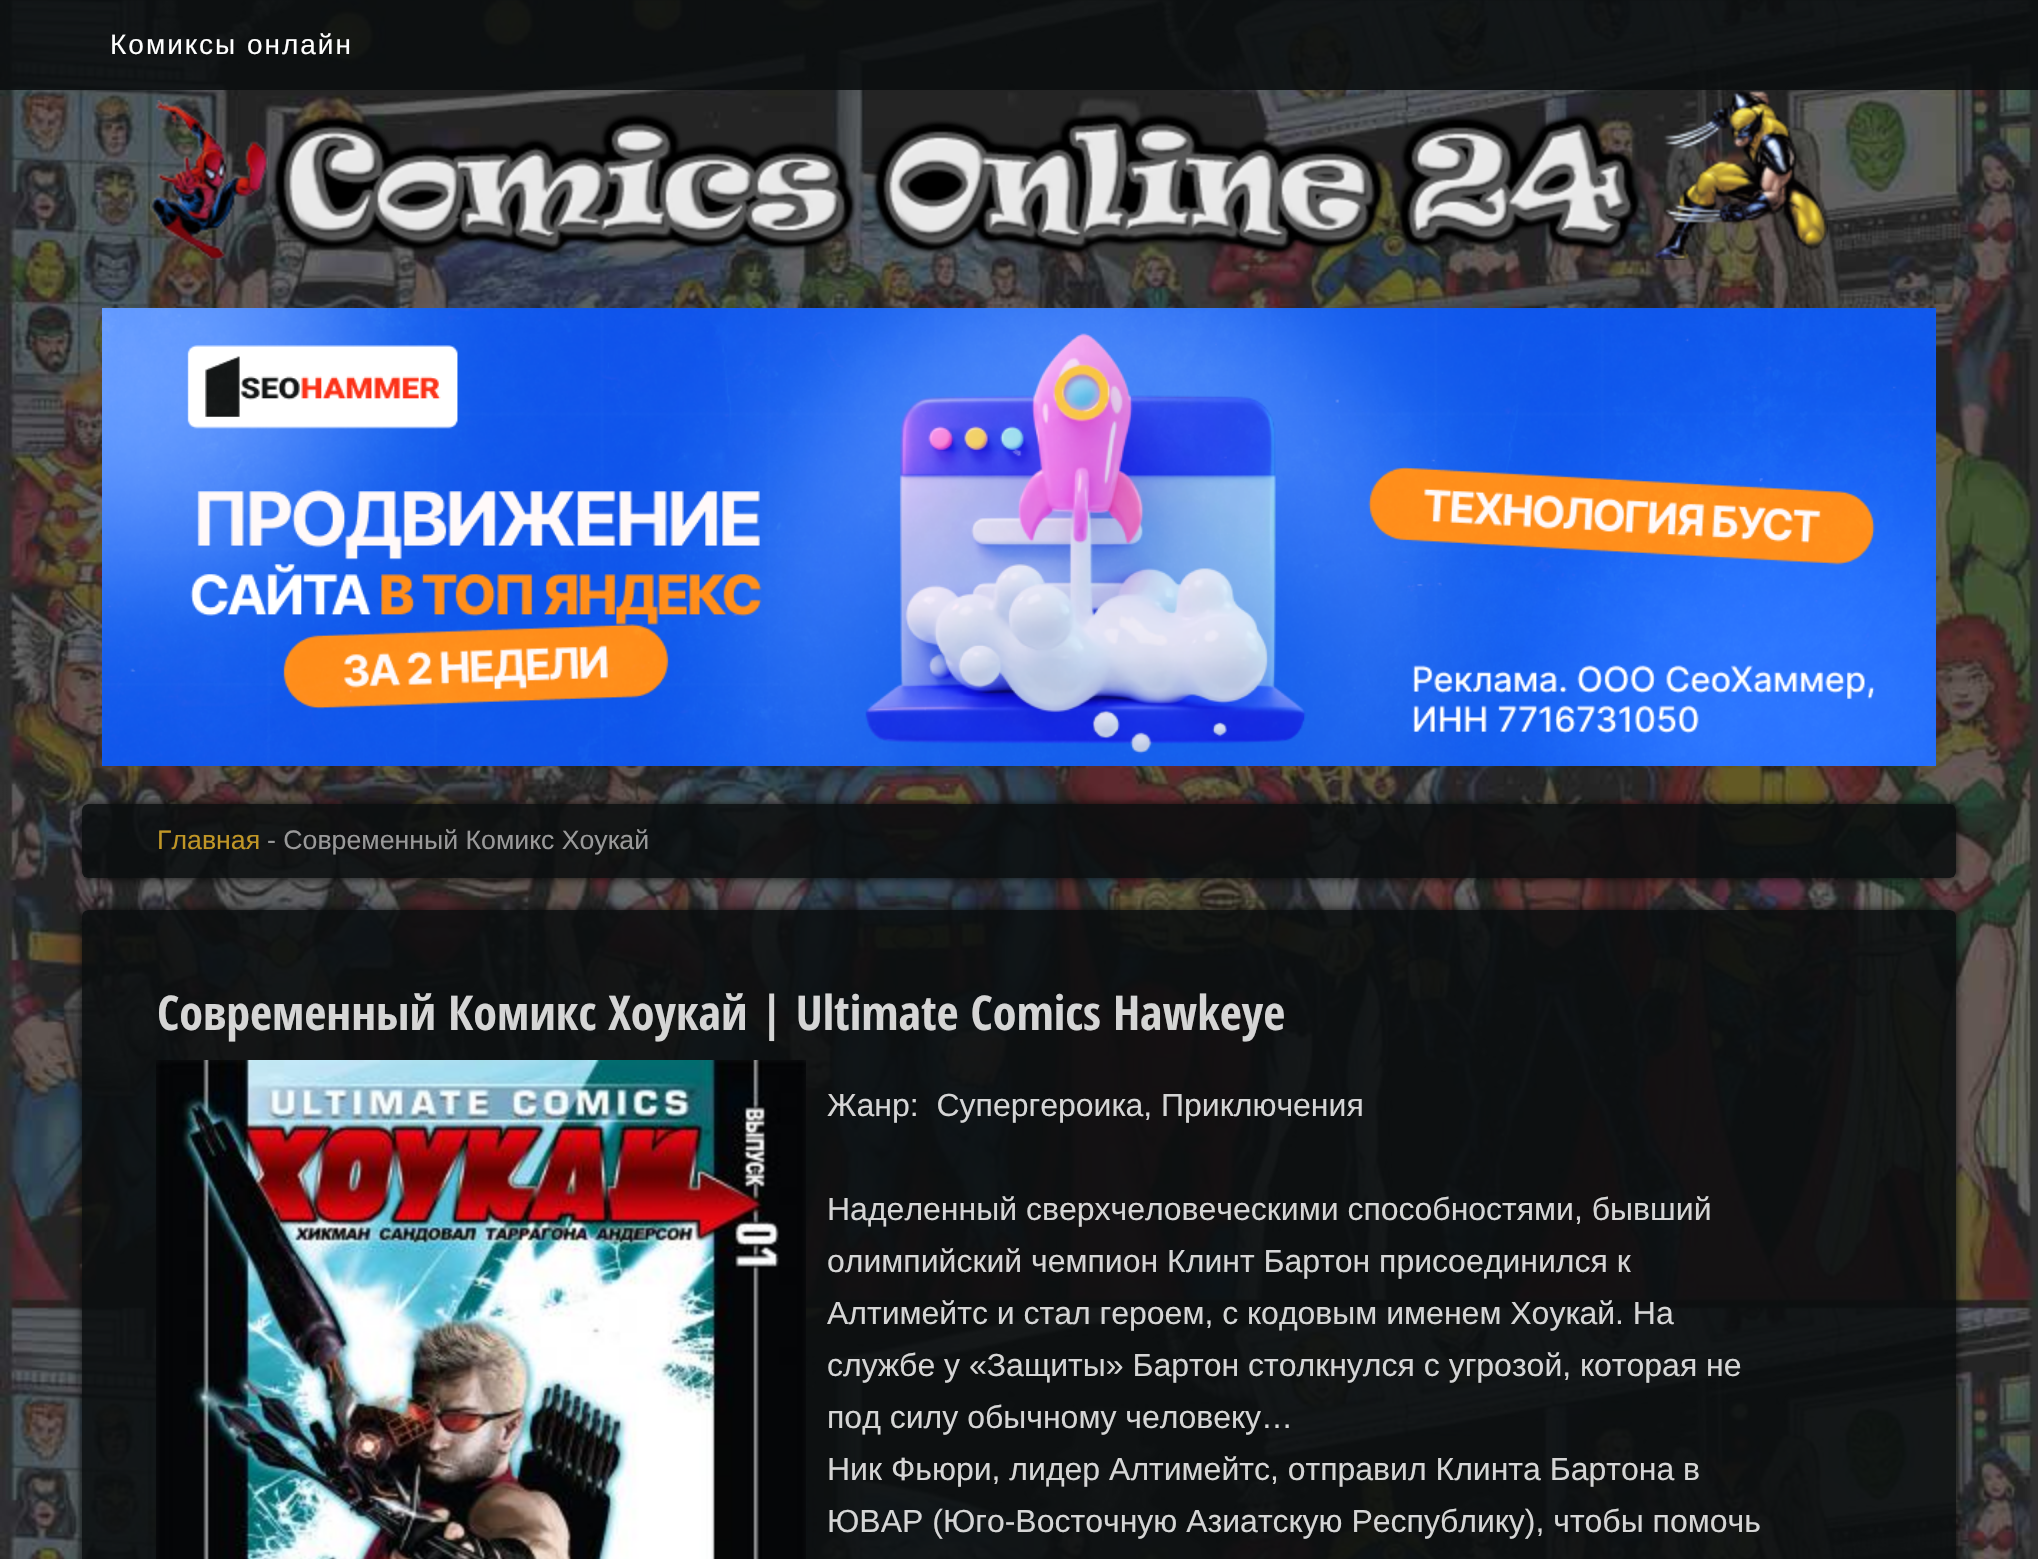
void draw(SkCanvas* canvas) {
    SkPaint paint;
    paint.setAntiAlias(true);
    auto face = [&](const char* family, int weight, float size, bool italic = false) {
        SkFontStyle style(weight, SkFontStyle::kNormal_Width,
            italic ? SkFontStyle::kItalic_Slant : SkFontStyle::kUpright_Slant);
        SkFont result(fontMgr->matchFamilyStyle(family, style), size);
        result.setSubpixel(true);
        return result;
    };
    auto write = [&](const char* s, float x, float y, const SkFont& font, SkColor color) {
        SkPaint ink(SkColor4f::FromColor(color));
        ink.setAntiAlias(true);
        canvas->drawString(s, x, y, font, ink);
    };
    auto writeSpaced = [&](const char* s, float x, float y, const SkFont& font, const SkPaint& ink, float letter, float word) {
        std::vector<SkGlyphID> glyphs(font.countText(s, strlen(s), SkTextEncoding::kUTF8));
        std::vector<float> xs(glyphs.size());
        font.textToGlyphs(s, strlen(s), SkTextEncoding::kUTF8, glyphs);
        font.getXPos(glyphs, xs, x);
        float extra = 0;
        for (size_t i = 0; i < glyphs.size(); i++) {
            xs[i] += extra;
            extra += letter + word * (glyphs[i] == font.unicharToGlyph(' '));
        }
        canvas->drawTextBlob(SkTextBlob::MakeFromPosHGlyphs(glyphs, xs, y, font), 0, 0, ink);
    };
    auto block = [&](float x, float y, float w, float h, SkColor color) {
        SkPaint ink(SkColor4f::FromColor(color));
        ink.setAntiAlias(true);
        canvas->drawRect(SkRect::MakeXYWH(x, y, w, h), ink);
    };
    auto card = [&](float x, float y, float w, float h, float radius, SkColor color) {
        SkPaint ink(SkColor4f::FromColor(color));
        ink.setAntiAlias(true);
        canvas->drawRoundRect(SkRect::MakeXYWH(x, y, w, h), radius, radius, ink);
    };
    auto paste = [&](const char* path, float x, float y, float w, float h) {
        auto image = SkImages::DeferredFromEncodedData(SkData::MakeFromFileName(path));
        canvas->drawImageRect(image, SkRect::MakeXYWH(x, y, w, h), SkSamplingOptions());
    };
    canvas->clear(SK_ColorWHITE);
    paste("pic1.png", 0, 0, 2038, 1559);
    block(0, 0, 2038, 90, SkColorSetARGB(224, 9, 13, 14));
    auto kFont1 = face("Liberation Sans", 400, 28);
    paint.setColor(SK_ColorWHITE);
    writeSpaced("Комиксы онлайн", 110, 54, kFont1, paint, 2, 0);
    paste("pic2.png", 150, 100, 118, 160);
    paste("pic3.png", 272, 112, 1370, 144);
    paste("pic4.png", 1654, 90, 174, 170);
    paste("pic5.png", 102, 308, 1834, 458);
    canvas->save();
    canvas->clipPath(SkPathBuilder(SkPathFillType::kEvenOdd).moveTo(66, 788).lineTo(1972, 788).lineTo(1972, 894).lineTo(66, 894).close().moveTo(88, 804).lineTo(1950, 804).cubicTo(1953.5f, 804, 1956, 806.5f, 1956, 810).lineTo(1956, 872).cubicTo(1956, 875.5f, 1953.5f, 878, 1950, 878).lineTo(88, 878).cubicTo(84.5f, 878, 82, 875.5f, 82, 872).lineTo(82, 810).cubicTo(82, 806.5f, 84.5f, 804, 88, 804).close().detach(), true);
    paint.setColor(SkColorSetARGB(204, 0, 0, 0));
    paint.setMaskFilter(SkMaskFilter::MakeBlur(kNormal_SkBlurStyle, 5));
    canvas->drawRoundRect(SkRect::MakeXYWH(82, 804, 1874, 74), 6, 6, paint);
    paint.setMaskFilter(nullptr);
    canvas->restore();
    card(82, 804, 1874, 74, 6, SkColorSetARGB(224, 9, 13, 14));
    auto kFont2 = face("Liberation Sans", 400, 26.7f);
    write("Главная", 157, 849, kFont2, SkColorSetRGB(192, 150, 38));
    write("- Современный Комикс Хоукай", 267, 849, kFont2, SkColorSetRGB(153, 153, 153));
    canvas->save();
    canvas->clipPath(SkPathBuilder(SkPathFillType::kEvenOdd).moveTo(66, 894).lineTo(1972, 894).lineTo(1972, 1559).lineTo(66, 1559).close().moveTo(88, 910).lineTo(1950, 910).cubicTo(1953.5f, 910, 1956, 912.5f, 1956, 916).lineTo(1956, 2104).cubicTo(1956, 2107.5f, 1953.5f, 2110, 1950, 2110).lineTo(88, 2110).cubicTo(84.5f, 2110, 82, 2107.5f, 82, 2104).lineTo(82, 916).cubicTo(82, 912.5f, 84.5f, 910, 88, 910).close().detach(), true);
    paint.setMaskFilter(SkMaskFilter::MakeBlur(kNormal_SkBlurStyle, 5));
    canvas->drawRoundRect(SkRect::MakeXYWH(82, 910, 1874, 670), 6, 6, paint);
    paint.setMaskFilter(nullptr);
    canvas->restore();
    card(82, 910, 1874, 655, 6, SkColorSetARGB(224, 9, 13, 14));
    auto kFont3 = face("Open Sans Condensed", 700, 48);
    write("Современный Комикс Хоукай | Ultimate Comics Hawkeye", 157, 1030, kFont3, SkColorSetRGB(213, 213, 213));
    paste("pic6.png", 156, 1060, 650, 499);
    auto kFont4 = face("Liberation Sans", 400, 32);
    write("Жанр:  Супергероика, Приключения", 827, 1116, kFont4, SkColorSetRGB(213, 213, 213));
    write("Наделенный сверхчеловеческими способностями, бывший", 827, 1220, kFont4, SkColorSetRGB(213, 213, 213));
    write("олимпийский чемпион Клинт Бартон присоединился к", 827, 1272, kFont4, SkColorSetRGB(213, 213, 213));
    write("Алтимейтс и стал героем, с кодовым именем Хоукай. На", 827, 1324, kFont4, SkColorSetRGB(213, 213, 213));
    write("службе у «Защиты» Бартон столкнулся с угрозой, которая не", 827, 1376, kFont4, SkColorSetRGB(213, 213, 213));
    write("под силу обычному человеку…", 827, 1428, kFont4, SkColorSetRGB(213, 213, 213));
    write("Ник Фьюри, лидер Алтимейтс, отправил Клинта Бартона в", 827, 1480, kFont4, SkColorSetRGB(213, 213, 213));
    write("ЮВАР (Юго-Восточную Азиатскую Республику), чтобы помочь", 827, 1532, kFont4, SkColorSetRGB(213, 213, 213));
}
